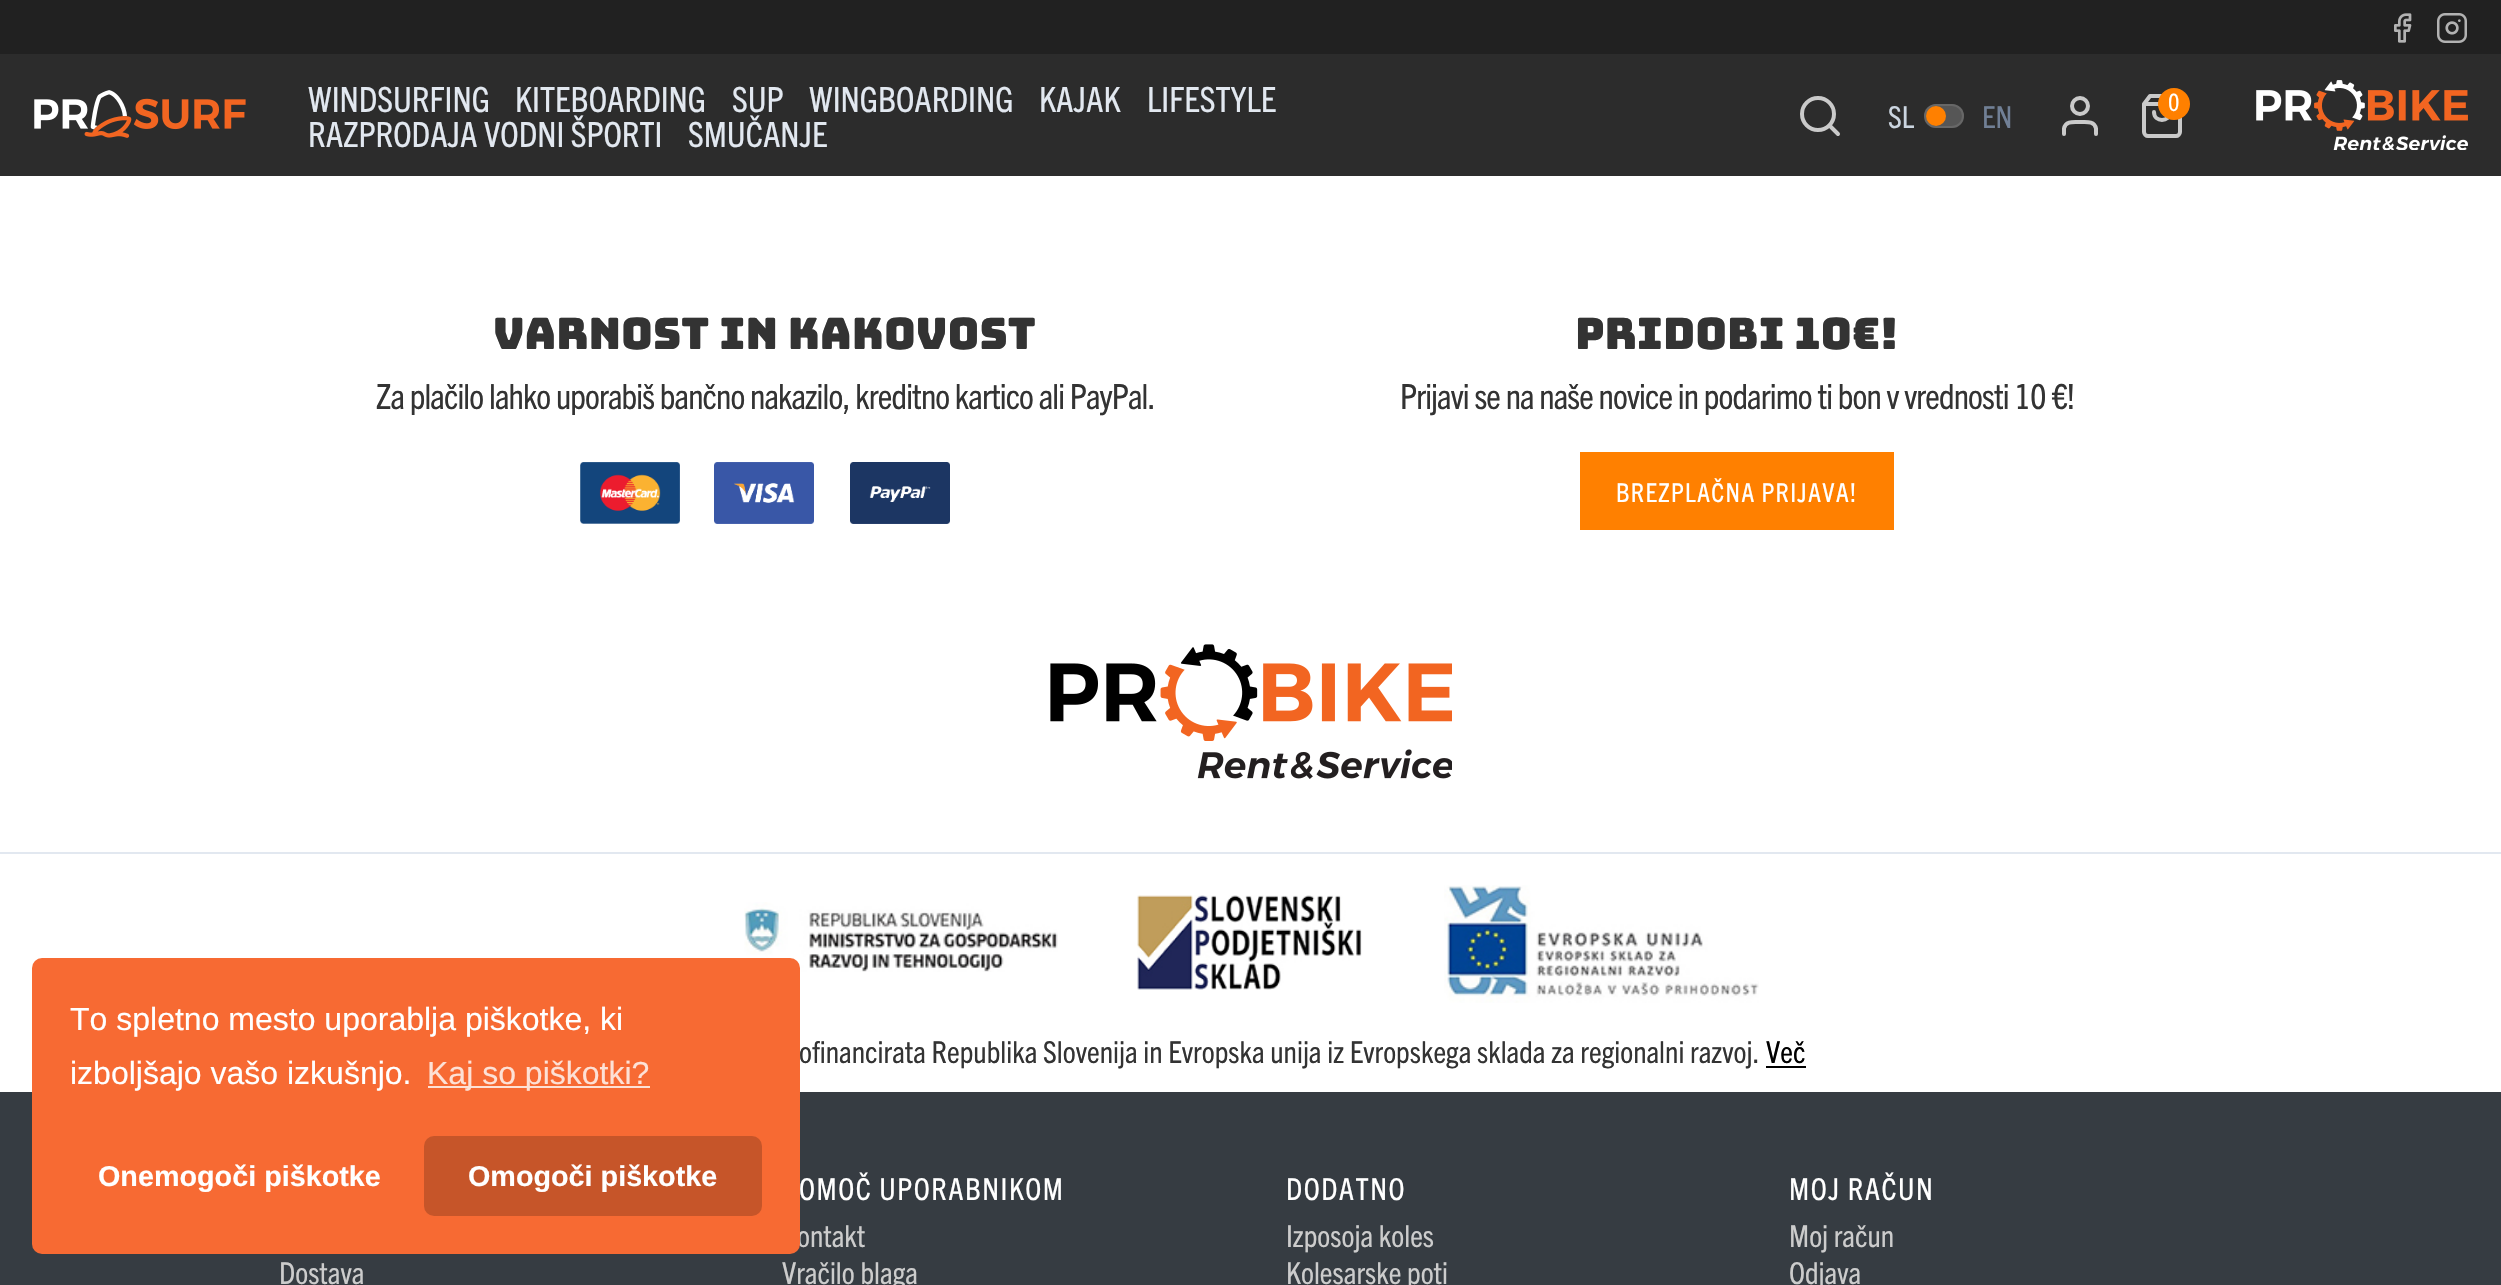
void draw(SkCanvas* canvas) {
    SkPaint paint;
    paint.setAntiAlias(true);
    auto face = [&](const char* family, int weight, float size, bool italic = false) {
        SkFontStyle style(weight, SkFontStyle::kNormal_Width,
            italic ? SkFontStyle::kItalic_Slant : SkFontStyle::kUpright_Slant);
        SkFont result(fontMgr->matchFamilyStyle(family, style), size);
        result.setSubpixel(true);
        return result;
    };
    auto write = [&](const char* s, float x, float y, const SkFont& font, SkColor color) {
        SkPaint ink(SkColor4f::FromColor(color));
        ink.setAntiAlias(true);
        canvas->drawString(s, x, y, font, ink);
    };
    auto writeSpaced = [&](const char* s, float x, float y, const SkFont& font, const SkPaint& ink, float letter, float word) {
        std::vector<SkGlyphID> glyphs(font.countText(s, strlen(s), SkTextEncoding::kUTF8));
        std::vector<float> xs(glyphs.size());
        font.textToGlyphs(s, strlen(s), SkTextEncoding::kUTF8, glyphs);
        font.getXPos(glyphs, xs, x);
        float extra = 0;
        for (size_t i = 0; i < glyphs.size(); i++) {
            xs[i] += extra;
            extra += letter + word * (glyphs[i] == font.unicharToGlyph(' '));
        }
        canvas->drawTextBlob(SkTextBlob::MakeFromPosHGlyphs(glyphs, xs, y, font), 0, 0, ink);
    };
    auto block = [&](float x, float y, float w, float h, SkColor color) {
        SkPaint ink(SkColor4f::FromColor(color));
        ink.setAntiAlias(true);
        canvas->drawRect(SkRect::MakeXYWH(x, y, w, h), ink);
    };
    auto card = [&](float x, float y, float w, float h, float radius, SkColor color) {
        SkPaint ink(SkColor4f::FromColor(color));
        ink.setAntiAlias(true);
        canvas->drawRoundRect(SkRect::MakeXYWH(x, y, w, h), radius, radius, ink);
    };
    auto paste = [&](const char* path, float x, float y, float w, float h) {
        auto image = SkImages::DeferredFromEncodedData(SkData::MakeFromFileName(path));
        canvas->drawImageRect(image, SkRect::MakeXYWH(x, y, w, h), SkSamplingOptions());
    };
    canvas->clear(SK_ColorWHITE);
    block(0, 0, 2501, 54, SkColorSetRGB(33, 33, 33));
    paste("pic1.png", 2394, 13, 18, 30);
    paste("pic2.png", 2437, 13, 30, 30);
    block(0, 54, 2501, 122, SkColorSetRGB(44, 44, 44));
    paste("pic3.png", 34, 90, 212, 48);
    auto kFont1 = face("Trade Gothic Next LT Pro", 400, 34.7f);
    write("WINDSURFING", 308, 112, kFont1, SkColorSetRGB(226, 232, 240));
    write("KITEBOARDING", 515, 112, kFont1, SkColorSetRGB(226, 232, 240));
    write("SUP", 732, 112, kFont1, SkColorSetRGB(226, 232, 240));
    write("WINGBOARDING", 809, 112, kFont1, SkColorSetRGB(226, 232, 240));
    write("KAJAK", 1039, 112, kFont1, SkColorSetRGB(226, 232, 240));
    write("LIFESTYLE", 1147, 112, kFont1, SkColorSetRGB(226, 232, 240));
    write("RAZPRODAJA VODNI ŠPORTI", 308, 147, kFont1, SkColorSetRGB(226, 232, 240));
    write("SMUČANJE", 688, 147, kFont1, SkColorSetRGB(226, 232, 240));
    paint.setStyle(SkPaint::kStroke_Style);
    paint.setStrokeWidth(4);
    paint.setColor(SkColorSetRGB(202, 202, 202));
    canvas->drawCircle(1818, 114, 16, paint);
    paint.setStrokeCap(SkPaint::kRound_Cap);
    paint.setStrokeJoin(SkPaint::kRound_Join);
    canvas->drawPath(SkPathBuilder().moveTo(1838, 134).lineTo(1829.5f, 125.5f).detach(), paint);
    auto kFont2 = face("Trade Gothic Next LT Pro", 400, 30.3f);
    write("SL", 1888, 128, kFont2, SkColorSetRGB(203, 213, 224));
    card(1924, 104, 40, 24, 12, SkColorSetRGB(86, 86, 86));
    paint.setStrokeWidth(2);
    paint.setStrokeCap(SkPaint::kButt_Cap);
    paint.setStrokeJoin(SkPaint::kMiter_Join);
    paint.setColor(SkColorSetARGB(102, 128, 128, 128));
    canvas->drawRoundRect(SkRect::MakeXYWH(1925, 105, 38, 22), 11, 11, paint);
    paint.setStyle(SkPaint::kFill_Style);
    paint.setColor(SkColorSetRGB(255, 128, 0));
    canvas->drawCircle(1936, 116, 10, paint);
    write("EN", 1982, 128, kFont2, SkColorSetRGB(113, 128, 150));
    paint.setStyle(SkPaint::kStroke_Style);
    paint.setStrokeWidth(4);
    paint.setStrokeCap(SkPaint::kRound_Cap);
    paint.setStrokeJoin(SkPaint::kRound_Join);
    paint.setColor(SkColorSetRGB(202, 202, 202));
    canvas->drawPath(SkPathBuilder().moveTo(2096, 134).lineTo(2096, 128.5f).cubicTo(2094.5f, 120.5f, 2086, 122, 2080, 122).cubicTo(2074, 122, 2065.5f, 120.5f, 2064, 128.5f).lineTo(2064, 134).detach(), paint);
    paint.setStrokeCap(SkPaint::kButt_Cap);
    paint.setStrokeJoin(SkPaint::kMiter_Join);
    canvas->drawCircle(2080, 106, 8, paint);
    paint.setStrokeCap(SkPaint::kRound_Cap);
    paint.setStrokeJoin(SkPaint::kRound_Join);
    canvas->drawPath(SkPathBuilder().moveTo(2150, 96).lineTo(2144, 104).lineTo(2144, 132).cubicTo(2144, 134, 2146, 136, 2148, 136).lineTo(2176, 136).cubicTo(2178, 136, 2180, 134, 2180, 132).lineTo(2180, 104).lineTo(2174, 96).close().moveTo(2144, 104).lineTo(2180, 104).moveTo(2170, 112).cubicTo(2170, 122.5f, 2154, 122.5f, 2154, 112).detach(), paint);
    paint.setStyle(SkPaint::kFill_Style);
    paint.setColor(SkColorSetRGB(255, 128, 0));
    canvas->drawCircle(2174, 104, 16, paint);
    auto kFont3 = face("Trade Gothic Next LT Pro", 400, 24);
    write("0", 2168, 111, kFont3, SK_ColorWHITE);
    paste("pic4.png", 2256, 80, 212, 70);
    auto kFont4 = face("Bungee", 400, 43.3f);
    write("Varnost in kakovost", 493, 349, kFont4, SkColorSetRGB(51, 51, 51));
    paint.setColor(SkColorSetRGB(51, 51, 51));
    writeSpaced("Za plačilo lahko uporabiš bančno nakazilo, kreditno kartico ali PayPal.", 376, 409, kFont1, paint, -0.87f, 0);
    paste("pic5.png", 580, 462, 100, 62);
    paste("pic6.png", 714, 462, 100, 62);
    paste("pic7.png", 850, 462, 100, 62);
    write("Pridobi 10€!", 1575, 349, kFont4, SkColorSetRGB(51, 51, 51));
    writeSpaced("Prijavi se na naše novice in podarimo ti bon v vrednosti 10 €!", 1400, 409, kFont1, paint, -0.87f, 0);
    block(1580, 452, 314, 78, SkColorSetRGB(255, 128, 0));
    auto kFont5 = face("Trade Gothic Next LT Pro", 400, 26);
    paint.setColor(SK_ColorWHITE);
    writeSpaced("BREZPLAČNA PRIJAVA!", 1616, 502, kFont5, paint, 1.25f, 0);
    paste("pic9.png", 744, 902, 314, 70);
    block(0, 1092, 2501, 193, SkColorSetRGB(54, 60, 66));
    writeSpaced("OMOČ UPORABNIKOM", 799, 1200, kFont2, paint, 1.5f, 0);
    write("ontakt", 797, 1247, kFont2, SkColorSetRGB(204, 204, 204));
    card(32, 958, 768, 296, 10, SkColorSetRGB(247, 106, 51));
    auto kFont6 = face("Liberation Sans", 400, 32);
    write("To spletno mesto uporablja piškotke, ki", 70, 1030, kFont6, SK_ColorWHITE);
    write("izboljšajo vašo izkušnjo.", 70, 1084, kFont6, SK_ColorWHITE);
    block(428, 1086, 222, 2, SkColorSetRGB(253, 225, 214));
    write("Kaj so piškotki?", 427, 1084, kFont6, SkColorSetRGB(253, 225, 214));
    auto kFont7 = face("Liberation Sans", 700, 28.75f);
    write("Onemogoči piškotke", 98, 1186, kFont7, SK_ColorWHITE);
    card(424, 1136, 338, 80, 10, SkColorSetRGB(198, 85, 41));
    write("Omogoči piškotke", 468, 1186, kFont7, SK_ColorWHITE);
    paste("pic8.png", 1050, 644, 402, 135);
    block(0, 852, 2501, 2, SkColorSetRGB(226, 232, 240));
    paste("pic10.png", 1137, 895, 225, 95);
    paste("pic11.png", 1444, 885, 315, 118);
    write("ofinancirata Republika Slovenija in Evropska unija iz Evropskega sklada za regionalni razvoj.", 799, 1063, kFont2, SkColorSetRGB(51, 51, 51));
    write("Več", 1766, 1063, kFont2, SK_ColorBLACK);
    block(1766, 1066, 40, 2, SK_ColorBLACK);
    write("Dostava", 279, 1284, kFont2, SkColorSetRGB(204, 204, 204));
    write("Vračilo blaga", 782, 1284, kFont2, SkColorSetRGB(204, 204, 204));
    writeSpaced("DODATNO", 1286, 1200, kFont2, paint, 1.5f, 0);
    write("Izposoja koles", 1286, 1247, kFont2, SkColorSetRGB(204, 204, 204));
    write("Kolesarske poti", 1286, 1284, kFont2, SkColorSetRGB(204, 204, 204));
    writeSpaced("MOJ RAČUN", 1789, 1200, kFont2, paint, 1.5f, 0);
    write("Moj račun", 1789, 1247, kFont2, SkColorSetRGB(204, 204, 204));
    write("Odjava", 1789, 1284, kFont2, SkColorSetRGB(204, 204, 204));
}
